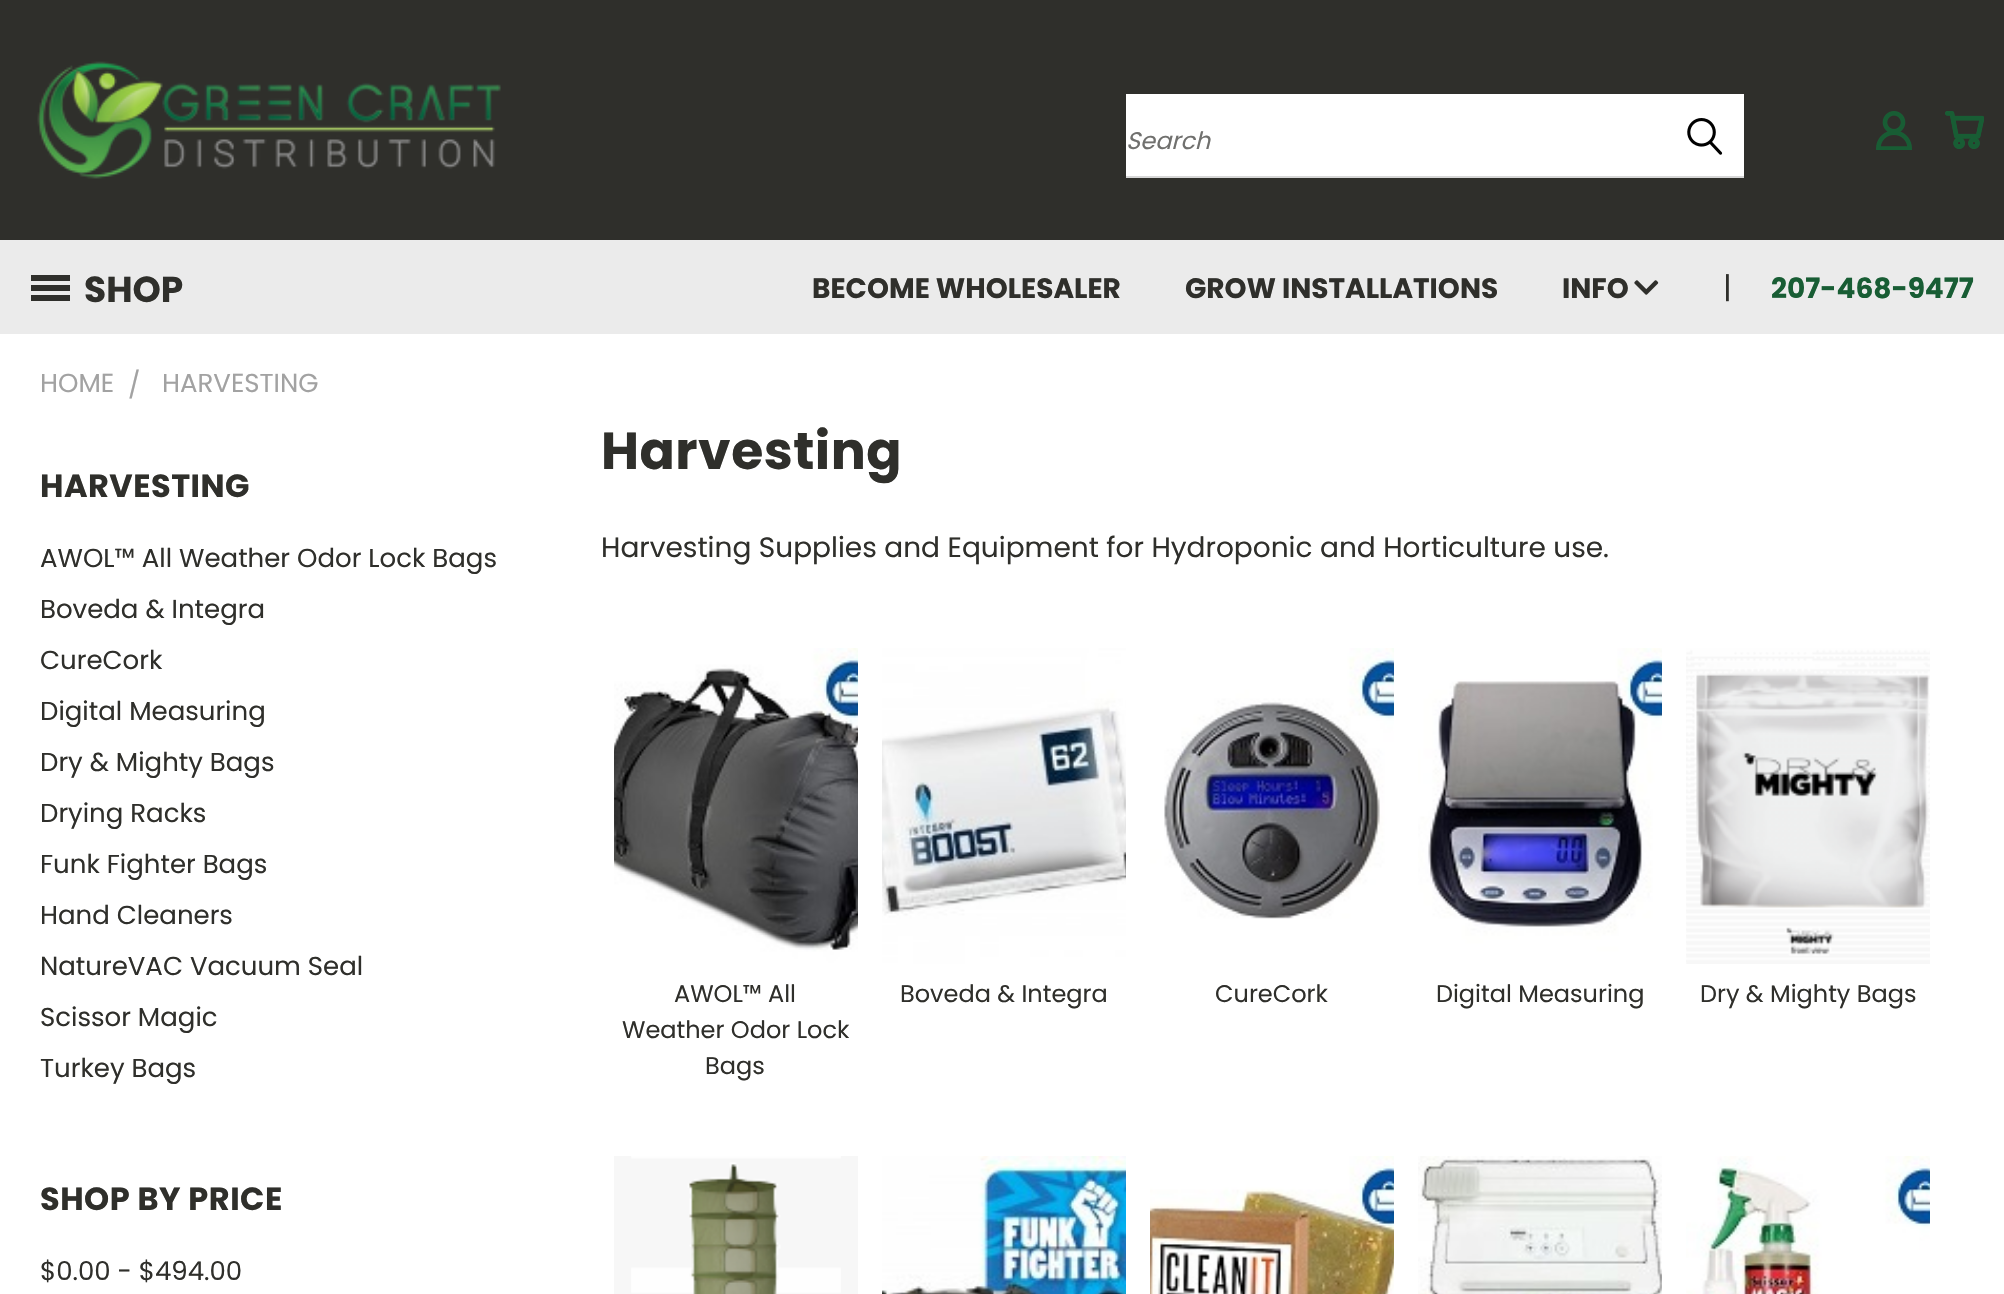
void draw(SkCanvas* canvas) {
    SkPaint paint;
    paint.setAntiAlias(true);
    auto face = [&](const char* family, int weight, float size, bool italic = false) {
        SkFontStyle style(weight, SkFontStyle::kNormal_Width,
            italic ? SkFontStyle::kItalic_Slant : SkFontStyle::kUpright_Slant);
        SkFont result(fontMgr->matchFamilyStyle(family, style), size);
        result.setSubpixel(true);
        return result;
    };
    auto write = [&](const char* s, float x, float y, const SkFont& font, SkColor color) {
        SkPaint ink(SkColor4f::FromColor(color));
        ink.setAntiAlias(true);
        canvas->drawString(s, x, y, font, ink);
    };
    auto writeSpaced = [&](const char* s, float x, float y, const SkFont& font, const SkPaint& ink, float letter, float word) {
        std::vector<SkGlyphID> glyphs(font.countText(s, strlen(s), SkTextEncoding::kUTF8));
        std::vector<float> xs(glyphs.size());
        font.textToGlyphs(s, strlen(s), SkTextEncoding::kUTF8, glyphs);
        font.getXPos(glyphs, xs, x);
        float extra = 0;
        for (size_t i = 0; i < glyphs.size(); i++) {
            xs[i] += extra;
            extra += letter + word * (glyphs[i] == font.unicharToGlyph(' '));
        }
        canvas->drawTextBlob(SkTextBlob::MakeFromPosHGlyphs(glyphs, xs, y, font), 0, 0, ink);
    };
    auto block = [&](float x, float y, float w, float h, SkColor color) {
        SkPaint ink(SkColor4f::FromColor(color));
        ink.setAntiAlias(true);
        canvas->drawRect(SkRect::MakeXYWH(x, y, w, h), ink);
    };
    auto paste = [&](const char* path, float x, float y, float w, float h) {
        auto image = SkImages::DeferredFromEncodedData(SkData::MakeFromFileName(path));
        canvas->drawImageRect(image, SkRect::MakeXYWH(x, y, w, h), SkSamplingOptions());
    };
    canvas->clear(SK_ColorWHITE);
    block(0, 0, 2004, 240, SkColorSetRGB(47, 47, 43));
    paste("pic1.png", 37, 61, 464, 118);
    block(1126, 94, 618, 82, SK_ColorWHITE);
    block(1126, 176, 618, 2, SkColorSetRGB(215, 215, 215));
    auto kFont1 = face("Poppins", 400, 24, true);
    write("Search", 1126, 149, kFont1, SkColorSetRGB(112, 112, 110));
    paste("pic2.png", 1687, 118, 36, 37);
    paste("pic3.png", 1876, 111, 36, 39);
    paste("pic4.png", 1945, 111, 39, 38);
    block(0, 240, 2004, 94, SkColorSetRGB(235, 235, 235));
    paste("pic5.png", 31, 275, 39, 26);
    auto kFont2 = face("Poppins", 700, 36);
    write("SHOP", 84, 302, kFont2, SkColorSetRGB(47, 47, 43));
    auto kFont3 = face("Poppins", 700, 28);
    write("BECOME WHOLESALER", 812, 298, kFont3, SkColorSetRGB(47, 47, 43));
    write("GROW INSTALLATIONS", 1185, 298, kFont3, SkColorSetRGB(47, 47, 43));
    write("INFO", 1562, 298, kFont3, SkColorSetRGB(47, 47, 43));
    paste("pic6.png", 1634, 280, 25, 15);
    auto kFont4 = face("Poppins", 400, 30);
    write("|", 1723, 298, kFont4, SkColorSetRGB(47, 47, 43));
    write("207-468-9477", 1771, 298, kFont3, SkColorSetRGB(24, 93, 52));
    auto kFont5 = face("Poppins", 400, 26);
    write("HOME", 40, 392, kFont5, SkColorSetRGB(162, 162, 162));
    write("/", 128, 394, kFont5, SkColorSetRGB(162, 162, 162));
    write("HARVESTING", 162, 392, kFont5, SkColorSetRGB(162, 162, 162));
    auto kFont6 = face("Poppins", 700, 32);
    paint.setColor(SkColorSetRGB(47, 47, 43));
    writeSpaced("HARVESTING", 40, 497, kFont6, paint, 0.5f, 0);
    write("AWOL™ All Weather Odor Lock Bags", 40, 567, kFont5, SkColorSetRGB(47, 47, 43));
    write("Boveda & Integra", 40, 618, kFont5, SkColorSetRGB(47, 47, 43));
    write("CureCork", 40, 669, kFont5, SkColorSetRGB(47, 47, 43));
    write("Digital Measuring", 40, 720, kFont5, SkColorSetRGB(47, 47, 43));
    write("Dry & Mighty Bags", 40, 771, kFont5, SkColorSetRGB(47, 47, 43));
    write("Drying Racks", 40, 822, kFont5, SkColorSetRGB(47, 47, 43));
    write("Funk Fighter Bags", 40, 873, kFont5, SkColorSetRGB(47, 47, 43));
    write("Hand Cleaners", 40, 924, kFont5, SkColorSetRGB(47, 47, 43));
    write("NatureVAC Vacuum Seal", 40, 975, kFont5, SkColorSetRGB(47, 47, 43));
    write("Scissor Magic", 40, 1026, kFont5, SkColorSetRGB(47, 47, 43));
    write("Turkey Bags", 40, 1077, kFont5, SkColorSetRGB(47, 47, 43));
    writeSpaced("SHOP BY PRICE", 40, 1210, kFont6, paint, 0.5f, 0);
    write("$0.00 - $494.00", 40, 1280, kFont5, SkColorSetRGB(47, 47, 43));
    auto kFont7 = face("Poppins", 700, 52);
    writeSpaced("Harvesting", 601, 469, kFont7, paint, 0.5f, 0);
    auto kFont8 = face("Poppins", 400, 28);
    write("Harvesting Supplies and Equipment for Hydroponic and Horticulture use.", 601, 557, kFont8, SkColorSetRGB(47, 47, 43));
    paste("pic7.png", 614, 648, 244, 316);
    auto kFont9 = face("Poppins", 400, 24);
    write("AWOL™ All", 674, 1002, kFont9, SkColorSetRGB(47, 47, 43));
    write("Weather Odor Lock", 622, 1038, kFont9, SkColorSetRGB(47, 47, 43));
    write("Bags", 705, 1074, kFont9, SkColorSetRGB(47, 47, 43));
    paste("pic8.png", 882, 648, 244, 316);
    write("Boveda & Integra", 900, 1002, kFont9, SkColorSetRGB(47, 47, 43));
    paste("pic9.png", 1150, 648, 244, 316);
    write("CureCork", 1215, 1002, kFont9, SkColorSetRGB(47, 47, 43));
    paste("pic10.png", 1418, 648, 244, 316);
    write("Digital Measuring", 1436, 1002, kFont9, SkColorSetRGB(47, 47, 43));
    block(1686, 649, 244, 315, SkColorSetRGB(247, 247, 247));
    paste("pic11.png", 1686, 648, 244, 316);
    write("Dry & Mighty Bags", 1700, 1002, kFont9, SkColorSetRGB(47, 47, 43));
    block(614, 1156, 244, 138, SkColorSetRGB(247, 247, 247));
    paste("pic12.png", 631, 1156, 210, 138);
    paste("pic13.png", 882, 1156, 244, 138);
    paste("pic14.png", 1150, 1156, 244, 138);
    paste("pic15.png", 1418, 1156, 244, 138);
    paste("pic16.png", 1686, 1156, 244, 138);
}
